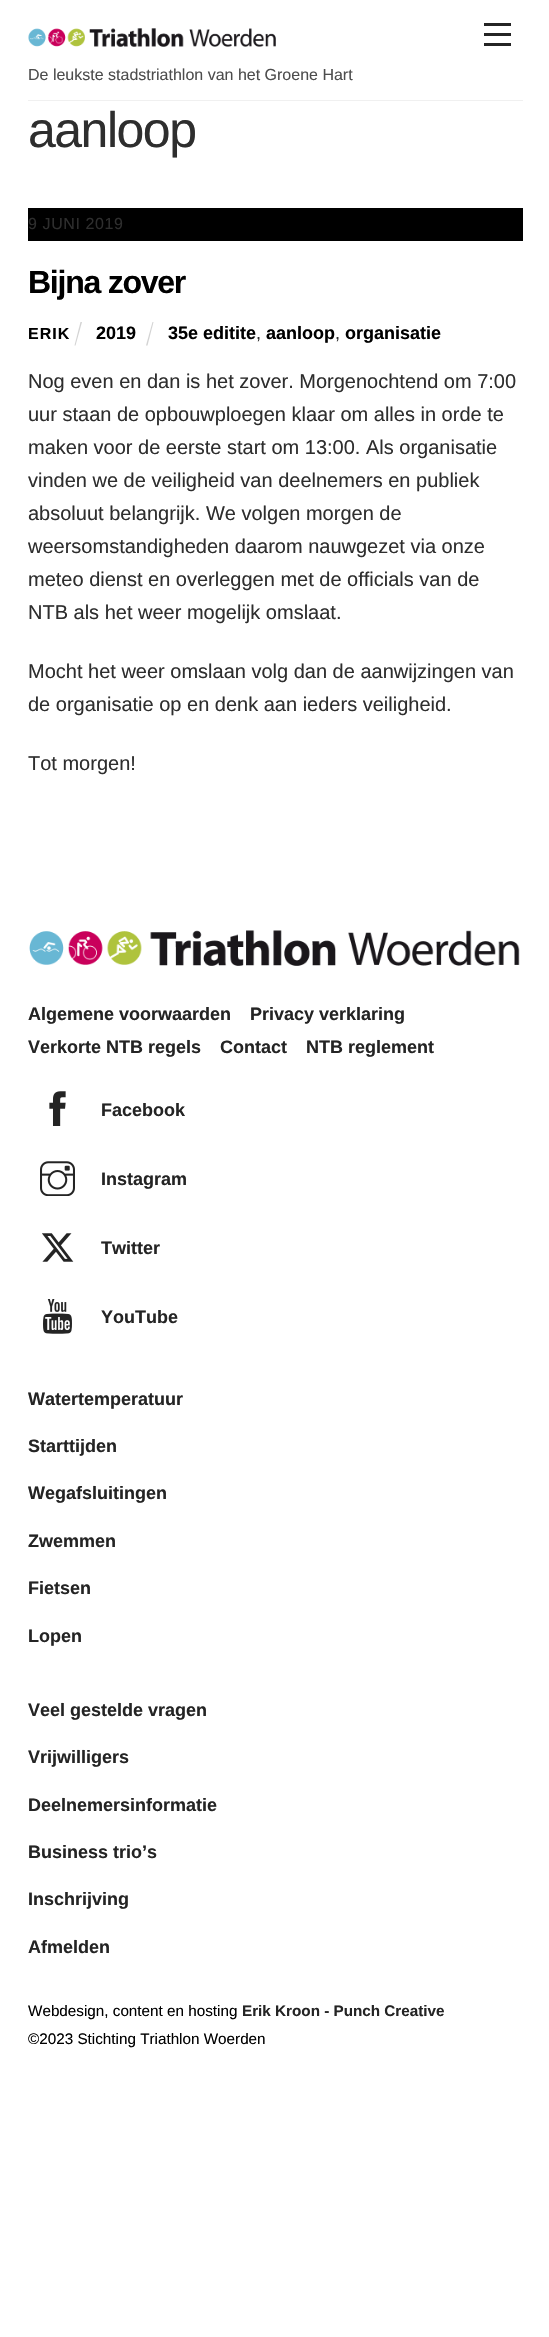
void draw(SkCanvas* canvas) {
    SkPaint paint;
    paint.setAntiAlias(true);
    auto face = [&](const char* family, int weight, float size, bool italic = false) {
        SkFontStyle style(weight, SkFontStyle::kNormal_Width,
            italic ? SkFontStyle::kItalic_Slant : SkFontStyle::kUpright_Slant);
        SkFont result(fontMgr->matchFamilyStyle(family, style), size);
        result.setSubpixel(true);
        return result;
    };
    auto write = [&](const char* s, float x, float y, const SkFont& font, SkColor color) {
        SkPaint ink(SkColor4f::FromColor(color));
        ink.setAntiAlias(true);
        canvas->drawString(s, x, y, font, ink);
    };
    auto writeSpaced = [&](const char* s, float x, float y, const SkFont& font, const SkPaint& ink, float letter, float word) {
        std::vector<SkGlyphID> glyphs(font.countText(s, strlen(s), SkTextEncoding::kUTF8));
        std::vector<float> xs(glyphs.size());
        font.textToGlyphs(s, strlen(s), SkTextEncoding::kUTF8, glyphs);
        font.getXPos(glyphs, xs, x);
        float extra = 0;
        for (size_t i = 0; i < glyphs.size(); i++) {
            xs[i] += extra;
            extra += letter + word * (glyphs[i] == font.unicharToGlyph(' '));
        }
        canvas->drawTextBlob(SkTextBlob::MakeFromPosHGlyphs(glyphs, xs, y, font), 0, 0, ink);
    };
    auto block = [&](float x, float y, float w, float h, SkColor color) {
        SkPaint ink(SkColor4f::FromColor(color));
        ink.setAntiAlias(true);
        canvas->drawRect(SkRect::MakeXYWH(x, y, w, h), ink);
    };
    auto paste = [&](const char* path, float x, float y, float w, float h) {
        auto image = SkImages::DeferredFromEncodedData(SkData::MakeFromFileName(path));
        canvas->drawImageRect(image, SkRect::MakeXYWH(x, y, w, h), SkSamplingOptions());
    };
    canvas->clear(SK_ColorWHITE);
    block(484, 43, 27, 3, SkColorSetRGB(36, 36, 36));
    block(484, 23, 27, 3, SkColorSetRGB(36, 36, 36));
    block(484, 33, 27, 3, SkColorSetRGB(36, 36, 36));
    block(28, 100, 495, 1, SkColorSetRGB(240, 240, 240));
    paste("pic1.png", 28, 28, 248, 19);
    auto kFont1 = face("Liberation Sans", 400, 16);
    write("De leukste stadstriathlon van het Groene Hart", 28, 80, kFont1, SkColorSetRGB(77, 77, 77));
    auto kFont2 = face("Liberation Sans", 400, 50);
    paint.setColor(SkColorSetRGB(46, 46, 46));
    writeSpaced("aanloop", 28, 147, kFont2, paint, -1.5f, 0);
    block(28, 208, 495, 33, SK_ColorBLACK);
    writeSpaced("9 JUNI 2019", 28, 229, kFont1, paint, 0.6f, 0);
    auto kFont3 = face("Liberation Sans", 700, 32);
    paint.setColor(SK_ColorBLACK);
    writeSpaced("Bijna zover", 28, 293, kFont3, paint, -1.25f, 0);
    auto kFont4 = face("Liberation Sans", 700, 16);
    writeSpaced("ERIK", 28, 339, kFont4, paint, 1, 0);
    paint.setColor(SkColorSetRGB(211, 211, 211));
    canvas->drawPath(SkPathBuilder().moveTo(80.5f, 322).lineTo(82, 322).lineTo(75.5f, 345.5f).lineTo(74.5f, 345.5f).close().detach(), paint);
    auto kFont5 = face("Liberation Sans", 700, 18);
    write("2019", 96, 339, kFont5, SK_ColorBLACK);
    canvas->drawPath(SkPathBuilder().moveTo(152.5f, 322).lineTo(153.5f, 322).lineTo(147.5f, 345.5f).lineTo(146, 345.5f).close().detach(), paint);
    write("35e editite", 168, 339, kFont5, SK_ColorBLACK);
    auto kFont6 = face("Liberation Sans", 400, 18);
    write(",", 256, 339, kFont6, SkColorSetRGB(46, 46, 46));
    write("aanloop", 266, 339, kFont5, SK_ColorBLACK);
    write(",", 335, 339, kFont6, SkColorSetRGB(46, 46, 46));
    write("organisatie", 345, 339, kFont5, SK_ColorBLACK);
    auto kFont7 = face("Liberation Sans", 400, 20);
    write("Nog even en dan is het zover. Morgenochtend om 7:00", 28, 388, kFont7, SkColorSetRGB(46, 46, 46));
    write("uur staan de opbouwploegen klaar om alles in orde te", 28, 421, kFont7, SkColorSetRGB(46, 46, 46));
    write("maken voor de eerste start om 13:00. Als organisatie", 28, 454, kFont7, SkColorSetRGB(46, 46, 46));
    write("vinden we de veiligheid van deelnemers en publiek", 28, 487, kFont7, SkColorSetRGB(46, 46, 46));
    write("absoluut belangrijk. We volgen morgen de", 28, 520, kFont7, SkColorSetRGB(46, 46, 46));
    write("weersomstandigheden daarom nauwgezet via onze", 28, 553, kFont7, SkColorSetRGB(46, 46, 46));
    write("meteo dienst en overleggen met de officials van de", 28, 586, kFont7, SkColorSetRGB(46, 46, 46));
    write("NTB als het weer mogelijk omslaat.", 28, 619, kFont7, SkColorSetRGB(46, 46, 46));
    write("Mocht het weer omslaan volg dan de aanwijzingen van", 28, 678, kFont7, SkColorSetRGB(46, 46, 46));
    write("de organisatie op en denk aan ieders veiligheid.", 28, 711, kFont7, SkColorSetRGB(46, 46, 46));
    write("Tot morgen!", 28, 770, kFont7, SkColorSetRGB(46, 46, 46));
    paste("pic2.png", 29, 930, 491, 36);
    write("Algemene voorwaarden", 28, 1020, kFont5, SkColorSetRGB(36, 36, 36));
    write("Privacy verklaring", 250, 1020, kFont5, SkColorSetRGB(36, 36, 36));
    write("Verkorte NTB regels", 28, 1053, kFont5, SkColorSetRGB(36, 36, 36));
    write("Contact", 220, 1053, kFont5, SkColorSetRGB(36, 36, 36));
    write("NTB reglement", 306, 1053, kFont5, SkColorSetRGB(36, 36, 36));
    paste("pic3.png", 49, 1091, 17, 35);
    write("Facebook", 101, 1116, kFont5, SkColorSetRGB(36, 36, 36));
    paste("pic4.png", 40, 1161, 35, 35);
    write("Instagram", 101, 1185, kFont5, SkColorSetRGB(36, 36, 36));
    paste("pic5.png", 42, 1233, 32, 29);
    write("Twitter", 101, 1254, kFont5, SkColorSetRGB(36, 36, 36));
    paste("pic6.png", 43, 1299, 29, 35);
    write("YouTube", 101, 1323, kFont5, SkColorSetRGB(36, 36, 36));
    write("Watertemperatuur", 28, 1405, kFont5, SkColorSetRGB(36, 36, 36));
    write("Starttijden", 28, 1452, kFont5, SkColorSetRGB(36, 36, 36));
    write("Wegafsluitingen", 28, 1499, kFont5, SkColorSetRGB(36, 36, 36));
    write("Zwemmen", 28, 1547, kFont5, SkColorSetRGB(36, 36, 36));
    write("Fietsen", 28, 1594, kFont5, SkColorSetRGB(36, 36, 36));
    write("Lopen", 28, 1642, kFont5, SkColorSetRGB(36, 36, 36));
    write("Veel gestelde vragen", 28, 1716, kFont5, SkColorSetRGB(36, 36, 36));
    write("Vrijwilligers", 28, 1763, kFont5, SkColorSetRGB(36, 36, 36));
    write("Deelnemersinformatie", 28, 1811, kFont5, SkColorSetRGB(36, 36, 36));
    write("Business trio’s", 28, 1858, kFont5, SkColorSetRGB(36, 36, 36));
    write("Inschrijving", 28, 1905, kFont5, SkColorSetRGB(36, 36, 36));
    write("Afmelden", 28, 1953, kFont5, SkColorSetRGB(36, 36, 36));
    auto kFont8 = face("Liberation Sans", 400, 15.25f);
    write("Webdesign, content en hosting", 28, 2016, kFont8, SK_ColorBLACK);
    auto kFont9 = face("Liberation Sans", 700, 15.25f);
    write("Erik Kroon - Punch Creative", 242, 2016, kFont9, SkColorSetRGB(36, 36, 36));
    write("©2023 Stichting Triathlon Woerden", 28, 2044, kFont8, SK_ColorBLACK);
}
